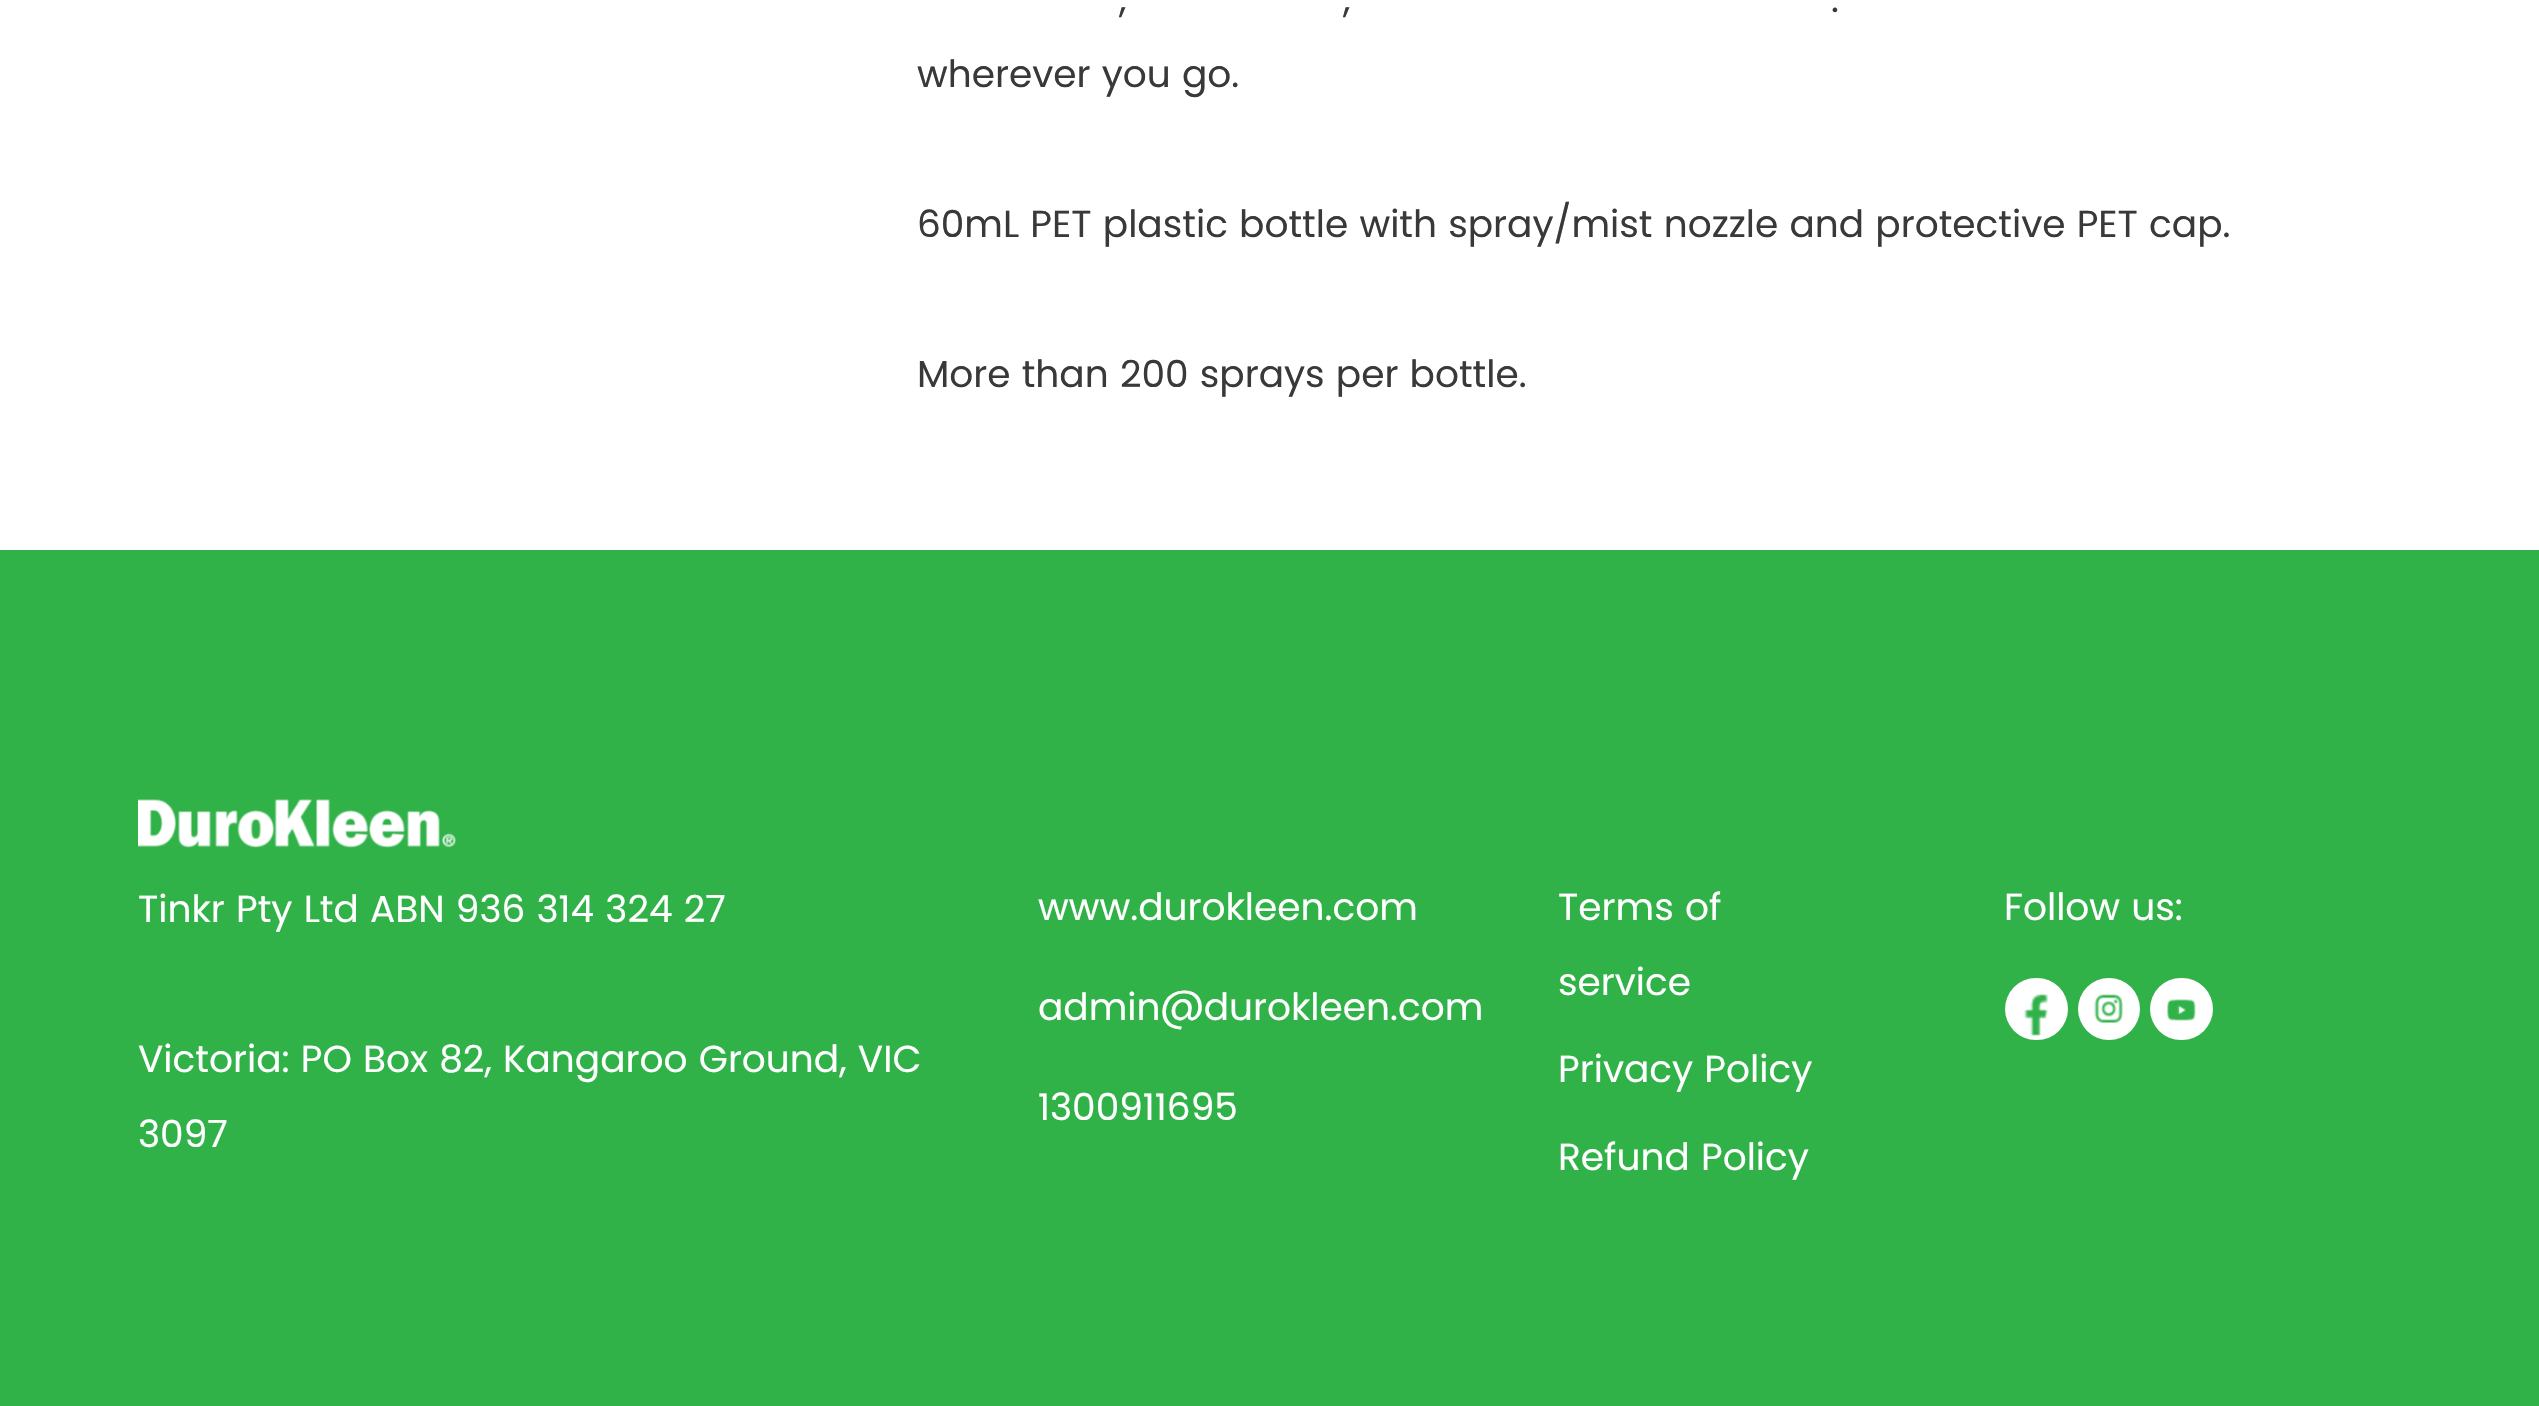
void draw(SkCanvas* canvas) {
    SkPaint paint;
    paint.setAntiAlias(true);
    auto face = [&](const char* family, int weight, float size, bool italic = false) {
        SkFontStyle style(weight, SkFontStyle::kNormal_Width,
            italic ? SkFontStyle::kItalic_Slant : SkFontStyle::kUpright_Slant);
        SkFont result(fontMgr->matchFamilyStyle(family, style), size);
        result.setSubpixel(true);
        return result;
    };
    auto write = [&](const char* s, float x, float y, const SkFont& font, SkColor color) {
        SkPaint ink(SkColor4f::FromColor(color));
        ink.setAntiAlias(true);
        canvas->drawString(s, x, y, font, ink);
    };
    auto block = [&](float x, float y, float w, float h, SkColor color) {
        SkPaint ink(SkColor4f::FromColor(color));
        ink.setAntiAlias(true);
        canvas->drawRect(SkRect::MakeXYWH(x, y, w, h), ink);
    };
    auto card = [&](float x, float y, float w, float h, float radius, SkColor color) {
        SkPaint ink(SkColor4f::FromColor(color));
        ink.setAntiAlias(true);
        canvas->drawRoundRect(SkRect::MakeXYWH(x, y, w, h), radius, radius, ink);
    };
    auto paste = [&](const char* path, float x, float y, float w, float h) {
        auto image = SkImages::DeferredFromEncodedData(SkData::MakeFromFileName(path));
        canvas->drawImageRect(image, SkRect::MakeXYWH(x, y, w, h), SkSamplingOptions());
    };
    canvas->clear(SK_ColorWHITE);
    auto kFont1 = face("Poppins", 400, 37.5f);
    write(",", 1119, 12, kFont1, SkColorSetRGB(57, 57, 57));
    write(",", 1343, 12, kFont1, SkColorSetRGB(57, 57, 57));
    write(".", 1831, 12, kFont1, SkColorSetRGB(57, 57, 57));
    write("wherever you go.", 917, 87, kFont1, SkColorSetRGB(57, 57, 57));
    write("60mL PET plastic bottle with spray/mist nozzle and protective PET cap.", 917, 237, kFont1, SkColorSetRGB(57, 57, 57));
    write("More than 200 sprays per bottle.", 917, 387, kFont1, SkColorSetRGB(57, 57, 57));
    block(0, 550, 2539, 856, SkColorSetRGB(48, 178, 73));
    paste("pic1.png", 138, 799, 318, 49);
    write("Tinkr Pty Ltd ABN 936 314 324 27", 138, 922, kFont1, SK_ColorWHITE);
    write("Victoria: PO Box 82, Kangaroo Ground, VIC", 138, 1072, kFont1, SK_ColorWHITE);
    write("3097", 138, 1147, kFont1, SK_ColorWHITE);
    write("www.durokleen.com", 1038, 920, kFont1, SK_ColorWHITE);
    write("admin@durokleen.com", 1038, 1020, kFont1, SK_ColorWHITE);
    write("1300911695", 1038, 1120, kFont1, SK_ColorWHITE);
    write("Terms of", 1558, 920, kFont1, SK_ColorWHITE);
    write("service", 1558, 995, kFont1, SK_ColorWHITE);
    write("Privacy Policy", 1558, 1082, kFont1, SK_ColorWHITE);
    write("Refund Policy", 1558, 1170, kFont1, SK_ColorWHITE);
    write("Follow us:", 2004, 920, kFont1, SK_ColorWHITE);
    card(2005, 978, 63, 62, 31, SK_ColorWHITE);
    paste("pic2.png", 2024, 994, 24, 42);
    paint.setColor(SK_ColorWHITE);
    canvas->drawCircle(2109, 1009, 31, paint);
    paste("pic3.png", 2094, 994, 29, 29);
    card(2150, 978, 63, 62, 31, SK_ColorWHITE);
    paste("pic4.png", 2167, 999, 29, 22);
}
